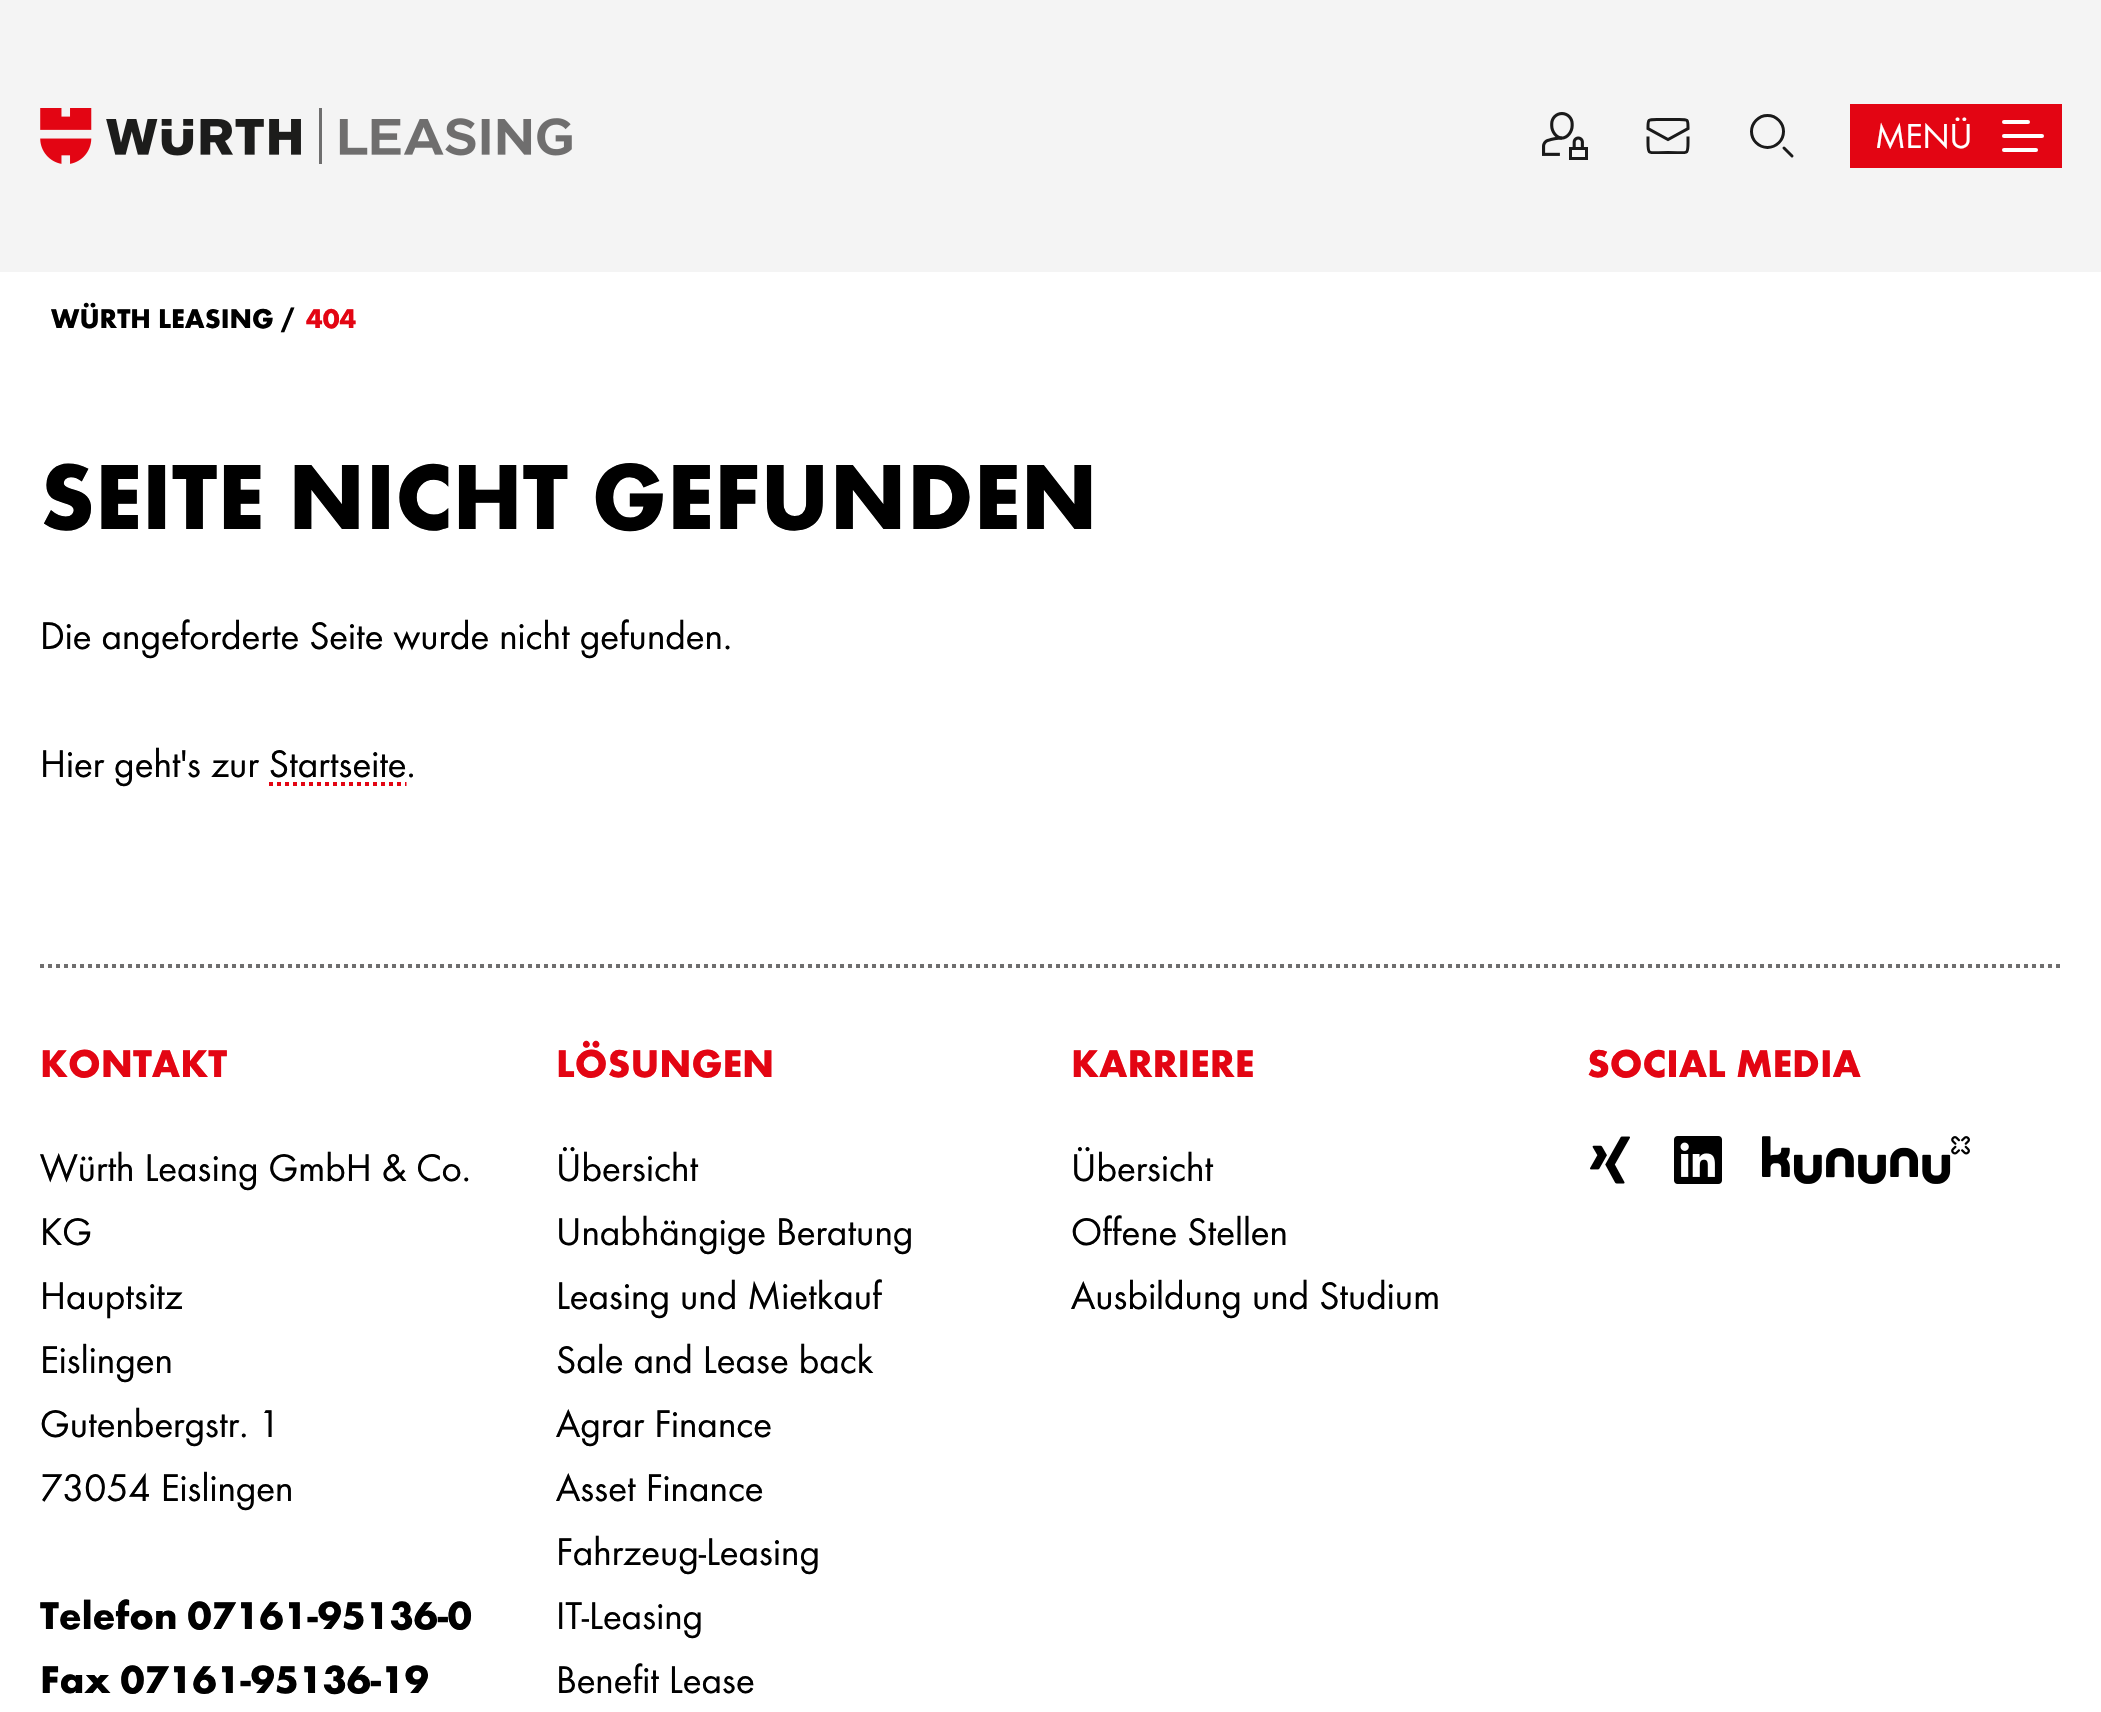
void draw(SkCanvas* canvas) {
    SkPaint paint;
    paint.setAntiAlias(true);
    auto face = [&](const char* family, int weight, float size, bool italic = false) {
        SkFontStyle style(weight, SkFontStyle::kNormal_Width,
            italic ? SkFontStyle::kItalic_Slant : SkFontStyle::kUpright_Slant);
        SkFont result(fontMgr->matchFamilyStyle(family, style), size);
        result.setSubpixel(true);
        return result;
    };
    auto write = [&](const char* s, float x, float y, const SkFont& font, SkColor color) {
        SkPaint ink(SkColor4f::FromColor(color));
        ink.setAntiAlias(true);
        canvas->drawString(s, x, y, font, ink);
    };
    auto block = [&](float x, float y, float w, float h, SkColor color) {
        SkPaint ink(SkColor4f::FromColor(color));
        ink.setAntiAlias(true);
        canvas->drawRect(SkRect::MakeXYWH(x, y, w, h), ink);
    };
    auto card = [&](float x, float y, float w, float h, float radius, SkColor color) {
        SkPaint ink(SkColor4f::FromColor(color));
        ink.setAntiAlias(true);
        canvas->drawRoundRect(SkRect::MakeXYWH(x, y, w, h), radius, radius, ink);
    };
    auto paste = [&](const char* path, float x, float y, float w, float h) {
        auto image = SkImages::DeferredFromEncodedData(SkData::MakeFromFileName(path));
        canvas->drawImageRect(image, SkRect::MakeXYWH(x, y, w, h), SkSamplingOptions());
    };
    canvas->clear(SK_ColorWHITE);
    block(0, 0, 2101, 272, SkColorSetRGB(244, 244, 244));
    paste("pic1.png", 40, 108, 532, 56);
    paste("pic2.png", 1542, 112, 46, 48);
    canvas->save();
    canvas->clipRect(SkRect::MakeXYWH(1646, 118, 44, 36));
    paint.setStyle(SkPaint::kStroke_Style);
    paint.setStrokeWidth(3);
    paint.setStrokeCap(SkPaint::kSquare_Cap);
    paint.setColor(SkColorSetRGB(26, 26, 26));
    canvas->drawPath(SkPathBuilder().moveTo(1648, 138).cubicTo(1648, 156.5f, 1646.5f, 152.5f, 1668, 152.5f).cubicTo(1689.5f, 152.5f, 1688, 156.5f, 1688, 138).detach(), paint);
    canvas->restore();
    canvas->drawPath(SkPathBuilder().moveTo(1688, 128.5f).cubicTo(1688, 119.5f, 1688.5f, 119.5f, 1679, 119.5f).lineTo(1657, 119.5f).cubicTo(1647.5f, 119.5f, 1648, 119.5f, 1648, 128.5f).lineTo(1668, 139.5f).close().detach(), paint);
    paint.setStrokeCap(SkPaint::kRound_Cap);
    paint.setStrokeJoin(SkPaint::kRound_Join);
    canvas->drawPath(SkPathBuilder().moveTo(1792, 156).lineTo(1784, 148).detach(), paint);
    paint.setStrokeCap(SkPaint::kButt_Cap);
    paint.setStrokeJoin(SkPaint::kMiter_Join);
    canvas->drawCircle(1767.5f, 131.5f, 16, paint);
    block(1850, 104, 212, 64, SkColorSetRGB(227, 5, 19));
    auto kFont1 = face("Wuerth", 400, 36);
    write("MENÜ", 1875, 148, kFont1, SK_ColorWHITE);
    card(2002, 120, 28, 4, 2, SK_ColorWHITE);
    card(2002, 134, 42, 4, 2, SK_ColorWHITE);
    card(2002, 148, 36, 4, 2, SK_ColorWHITE);
    auto kFont2 = face("Wuerth", 700, 28);
    write("WÜRTH LEASING /", 51, 328, kFont2, SK_ColorBLACK);
    write("404", 306, 328, kFont2, SkColorSetRGB(227, 5, 19));
    auto kFont3 = face("Wuerth", 700, 96);
    write("SEITE NICHT GEFUNDEN", 40, 529, kFont3, SK_ColorBLACK);
    auto kFont4 = face("Wuerth", 400, 40);
    write("Die angeforderte Seite wurde nicht gefunden.", 40, 649, kFont4, SK_ColorBLACK);
    write("Hier geht's zur Startseite.", 40, 777, kFont4, SK_ColorBLACK);
    paint.setStrokeWidth(4);
    paint.setColor(SkColorSetRGB(227, 5, 19));
    paint.setPathEffect(SkDashPathEffect::Make({{4, 4}}, 0));
    canvas->drawPath(SkPathBuilder().moveTo(269, 784).lineTo(406.5f, 784).detach(), paint);
    paint.setPathEffect(nullptr);
    paint.setColor(SkColorSetRGB(111, 110, 110));
    paint.setPathEffect(SkDashPathEffect::Make({{4, 4}}, 0));
    canvas->drawPath(SkPathBuilder().moveTo(40, 966).lineTo(2062, 966).detach(), paint);
    paint.setPathEffect(nullptr);
    auto kFont5 = face("Wuerth", 700, 40);
    write("KONTAKT", 40, 1077, kFont5, SkColorSetRGB(227, 5, 19));
    write("Würth Leasing GmbH & Co.", 40, 1181, kFont4, SK_ColorBLACK);
    write("KG", 40, 1245, kFont4, SK_ColorBLACK);
    write("Hauptsitz", 40, 1309, kFont4, SK_ColorBLACK);
    write("Eislingen", 40, 1373, kFont4, SK_ColorBLACK);
    write("Gutenbergstr. 1", 40, 1437, kFont4, SK_ColorBLACK);
    write("73054 Eislingen", 40, 1501, kFont4, SK_ColorBLACK);
    write("Telefon 07161-95136-0", 40, 1629, kFont5, SK_ColorBLACK);
    write("Fax 07161-95136-19", 40, 1693, kFont5, SK_ColorBLACK);
    write("LÖSUNGEN", 556, 1077, kFont5, SkColorSetRGB(227, 5, 19));
    write("Übersicht", 556, 1181, kFont4, SK_ColorBLACK);
    write("Unabhängige Beratung", 556, 1245, kFont4, SK_ColorBLACK);
    write("Leasing und Mietkauf", 556, 1309, kFont4, SK_ColorBLACK);
    write("Sale and Lease back", 556, 1373, kFont4, SK_ColorBLACK);
    write("Agrar Finance", 556, 1437, kFont4, SK_ColorBLACK);
    write("Asset Finance", 556, 1501, kFont4, SK_ColorBLACK);
    write("Fahrzeug-Leasing", 556, 1565, kFont4, SK_ColorBLACK);
    write("IT-Leasing", 556, 1629, kFont4, SK_ColorBLACK);
    write("Benefit Lease", 556, 1693, kFont4, SK_ColorBLACK);
    write("KARRIERE", 1071, 1077, kFont5, SkColorSetRGB(227, 5, 19));
    write("Übersicht", 1071, 1181, kFont4, SK_ColorBLACK);
    write("Offene Stellen", 1071, 1245, kFont4, SK_ColorBLACK);
    write("Ausbildung und Studium", 1071, 1309, kFont4, SK_ColorBLACK);
    write("SOCIAL MEDIA", 1587, 1077, kFont5, SkColorSetRGB(227, 5, 19));
    paste("pic3.png", 1590, 1136, 40, 48);
    paste("pic4.png", 1674, 1136, 48, 48);
    paste("pic5.png", 1762, 1136, 208, 48);
}
